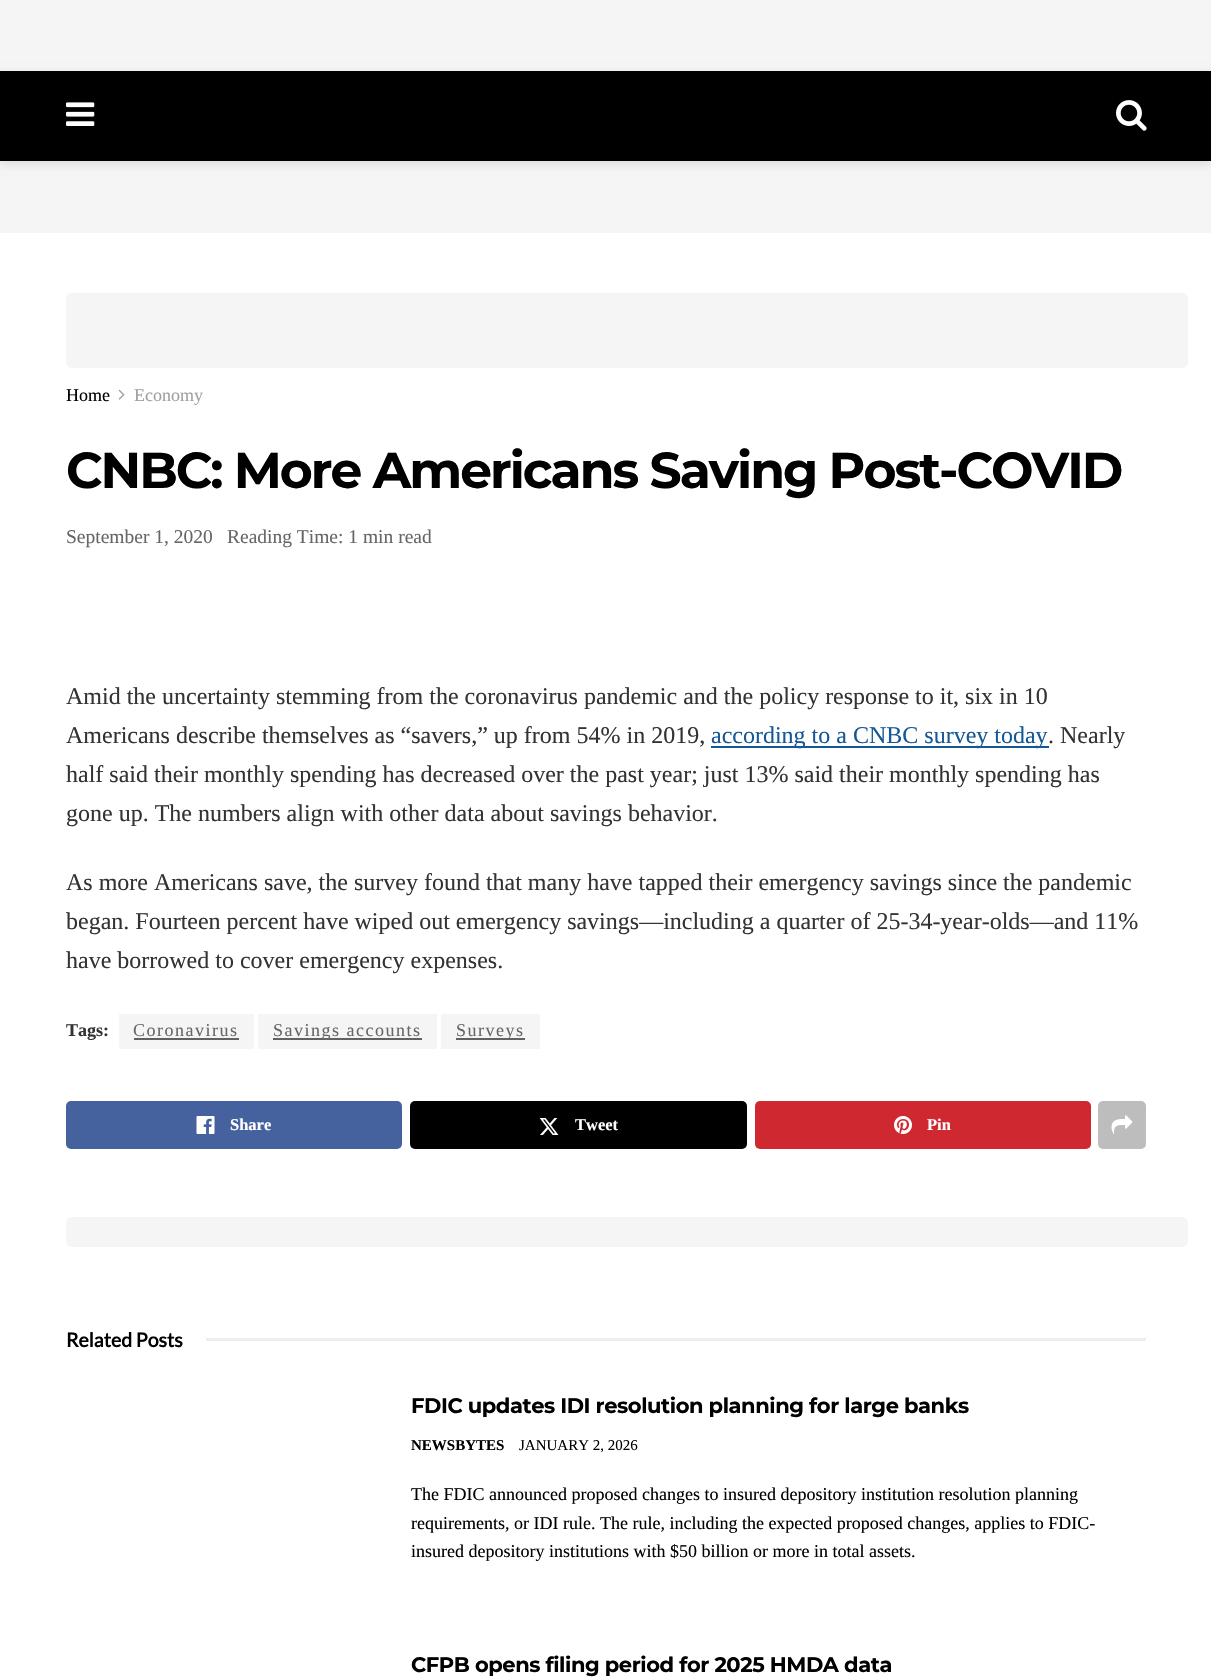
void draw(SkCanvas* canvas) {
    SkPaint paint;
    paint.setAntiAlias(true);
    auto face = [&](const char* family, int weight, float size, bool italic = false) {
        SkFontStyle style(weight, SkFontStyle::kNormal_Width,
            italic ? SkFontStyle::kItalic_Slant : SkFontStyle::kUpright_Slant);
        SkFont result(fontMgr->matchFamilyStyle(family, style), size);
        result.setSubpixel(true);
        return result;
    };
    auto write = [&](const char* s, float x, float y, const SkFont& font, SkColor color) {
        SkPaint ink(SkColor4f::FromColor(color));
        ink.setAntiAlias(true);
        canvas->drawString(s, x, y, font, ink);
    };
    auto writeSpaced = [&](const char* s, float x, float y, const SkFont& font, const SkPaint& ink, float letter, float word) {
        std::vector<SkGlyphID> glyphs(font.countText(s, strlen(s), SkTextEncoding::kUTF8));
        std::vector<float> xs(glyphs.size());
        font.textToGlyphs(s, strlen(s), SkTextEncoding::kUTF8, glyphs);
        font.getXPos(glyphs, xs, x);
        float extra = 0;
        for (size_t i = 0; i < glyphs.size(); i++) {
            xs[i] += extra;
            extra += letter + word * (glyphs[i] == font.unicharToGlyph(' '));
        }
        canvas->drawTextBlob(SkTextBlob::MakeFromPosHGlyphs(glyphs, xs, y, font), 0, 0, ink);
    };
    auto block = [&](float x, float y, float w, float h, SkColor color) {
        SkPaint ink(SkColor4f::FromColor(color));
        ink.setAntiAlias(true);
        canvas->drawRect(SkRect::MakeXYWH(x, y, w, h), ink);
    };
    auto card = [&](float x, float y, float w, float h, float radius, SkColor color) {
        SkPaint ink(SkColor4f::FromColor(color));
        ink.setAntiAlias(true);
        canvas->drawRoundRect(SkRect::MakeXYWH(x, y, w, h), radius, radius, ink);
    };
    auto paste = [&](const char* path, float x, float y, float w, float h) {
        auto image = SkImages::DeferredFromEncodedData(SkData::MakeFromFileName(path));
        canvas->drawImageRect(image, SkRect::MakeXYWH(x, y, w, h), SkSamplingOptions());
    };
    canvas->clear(SK_ColorWHITE);
    block(0, 0, 1211, 71, SkColorSetRGB(245, 245, 245));
    block(0, 161, 1211, 72, SkColorSetRGB(245, 245, 245));
    paint.setColor(SkColorSetARGB(26, 0, 0, 0));
    paint.setMaskFilter(SkMaskFilter::MakeBlur(kNormal_SkBlurStyle, 4.5f));
    canvas->drawRect(SkRect::MakeXYWH(0, 74, 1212, 90), paint);
    paint.setMaskFilter(nullptr);
    block(0, 71, 1211, 90, SK_ColorBLACK);
    paste("pic1.png", 66, 102, 29, 24);
    paste("pic2.png", 1116, 100, 31, 31);
    card(66, 293, 1122, 75, 6, SkColorSetRGB(245, 245, 245));
    auto kFont1 = face("Liberation Serif", 400, 18);
    write("Home", 66, 401, kFont1, SK_ColorBLACK);
    paste("pic3.png", 118, 389, 7, 11);
    write("Economy", 134, 401, kFont1, SkColorSetRGB(160, 160, 160));
    auto kFont2 = face("Montserrat", 700, 50.4f);
    paint.setColor(SK_ColorBLACK);
    writeSpaced("CNBC: More Americans Saving Post-COVID", 66, 488, kFont2, paint, -2, 0);
    auto kFont3 = face("Liberation Serif", 400, 19.5f);
    write("September 1, 2020", 66, 543, kFont3, SkColorSetRGB(102, 102, 102));
    write("Reading Time: 1 min read", 227, 543, kFont3, SkColorSetRGB(102, 102, 102));
    auto kFont4 = face("Liberation Serif", 400, 24);
    write("Amid the uncertainty stemming from the coronavirus pandemic and the policy response to it, six in 10", 66, 704, kFont4, SkColorSetRGB(51, 51, 51));
    write("Americans describe themselves as “savers,” up from 54% in 2019,", 66, 743, kFont4, SkColorSetRGB(51, 51, 51));
    block(711, 746, 338, 2, SkColorSetRGB(21, 88, 151));
    write("according to a CNBC survey today", 711, 743, kFont4, SkColorSetRGB(21, 88, 151));
    write(". Nearly", 1048, 743, kFont4, SkColorSetRGB(51, 51, 51));
    write("half said their monthly spending has decreased over the past year; just 13% said their monthly spending has", 66, 782, kFont4, SkColorSetRGB(51, 51, 51));
    write("gone up. The numbers align with other data about savings behavior.", 66, 821, kFont4, SkColorSetRGB(51, 51, 51));
    write("As more Americans save, the survey found that many have tapped their emergency savings since the pandemic", 66, 890, kFont4, SkColorSetRGB(51, 51, 51));
    write("began. Fourteen percent have wiped out emergency savings—including a quarter of 25-34-year-olds—and 11%", 66, 929, kFont4, SkColorSetRGB(51, 51, 51));
    write("have borrowed to cover emergency expenses.", 66, 968, kFont4, SkColorSetRGB(51, 51, 51));
    auto kFont5 = face("Liberation Serif", 700, 18);
    write("Tags:", 66, 1036, kFont5, SkColorSetRGB(51, 51, 51));
    block(119, 1014, 135, 35, SkColorSetRGB(245, 245, 245));
    paint.setColor(SkColorSetRGB(102, 102, 102));
    writeSpaced("Coronavirus", 133, 1036, kFont1, paint, 1.5f, 0);
    block(134, 1038, 105, 2, SkColorSetRGB(97, 97, 97));
    block(258, 1014, 179, 35, SkColorSetRGB(245, 245, 245));
    block(273, 1038, 149, 2, SkColorSetRGB(97, 97, 97));
    writeSpaced("Savings accounts", 273, 1036, kFont1, paint, 1.5f, 0);
    block(441, 1014, 99, 35, SkColorSetRGB(245, 245, 245));
    block(456, 1038, 69, 2, SkColorSetRGB(97, 97, 97));
    writeSpaced("Surveys", 456, 1036, kFont1, paint, 1.5f, 0);
    card(66, 1101, 336, 48, 5, SkColorSetRGB(69, 98, 159));
    paste("pic4.png", 196, 1116, 19, 18);
    auto kFont6 = face("Liberation Serif", 700, 16.5f);
    write("Share", 230, 1130, kFont6, SK_ColorWHITE);
    card(410, 1101, 337, 48, 5, SK_ColorBLACK);
    paste("pic5.png", 539, 1118, 20, 17);
    write("Tweet", 575, 1130, kFont6, SK_ColorWHITE);
    card(755, 1101, 336, 48, 5, SkColorSetRGB(207, 40, 48));
    paste("pic6.png", 894, 1116, 18, 18);
    write("Pin", 927, 1130, kFont6, SK_ColorWHITE);
    card(1098, 1101, 48, 48, 5, SkColorSetRGB(189, 189, 189));
    paste("pic7.png", 1111, 1115, 22, 19);
    card(66, 1217, 1122, 30, 6, SkColorSetRGB(245, 245, 245));
    auto kFont7 = face("Lato", 700, 19.5f);
    write("Related Posts", 66, 1347, kFont7, SK_ColorBLACK);
    block(206, 1338, 940, 3, SkColorSetRGB(238, 238, 238));
    auto kFont8 = face("Montserrat", 700, 21);
    paint.setColor(SK_ColorBLACK);
    writeSpaced("FDIC updates IDI resolution planning for large banks", 411, 1413, kFont8, paint, -0.42f, 0);
    auto kFont9 = face("Liberation Serif", 700, 15);
    write("NEWSBYTES", 411, 1450, kFont9, SK_ColorBLACK);
    auto kFont10 = face("Liberation Serif", 400, 15);
    write("JANUARY 2, 2026", 519, 1450, kFont10, SK_ColorBLACK);
    write("The FDIC announced proposed changes to insured depository institution resolution planning", 411, 1500, kFont1, SK_ColorBLACK);
    write("requirements, or IDI rule. The rule, including the expected proposed changes, applies to FDIC-", 411, 1529, kFont1, SK_ColorBLACK);
    write("insured depository institutions with $50 billion or more in total assets.", 411, 1557, kFont1, SK_ColorBLACK);
    writeSpaced("CFPB opens filing period for 2025 HMDA data", 411, 1672, kFont8, paint, -0.42f, 0);
}
